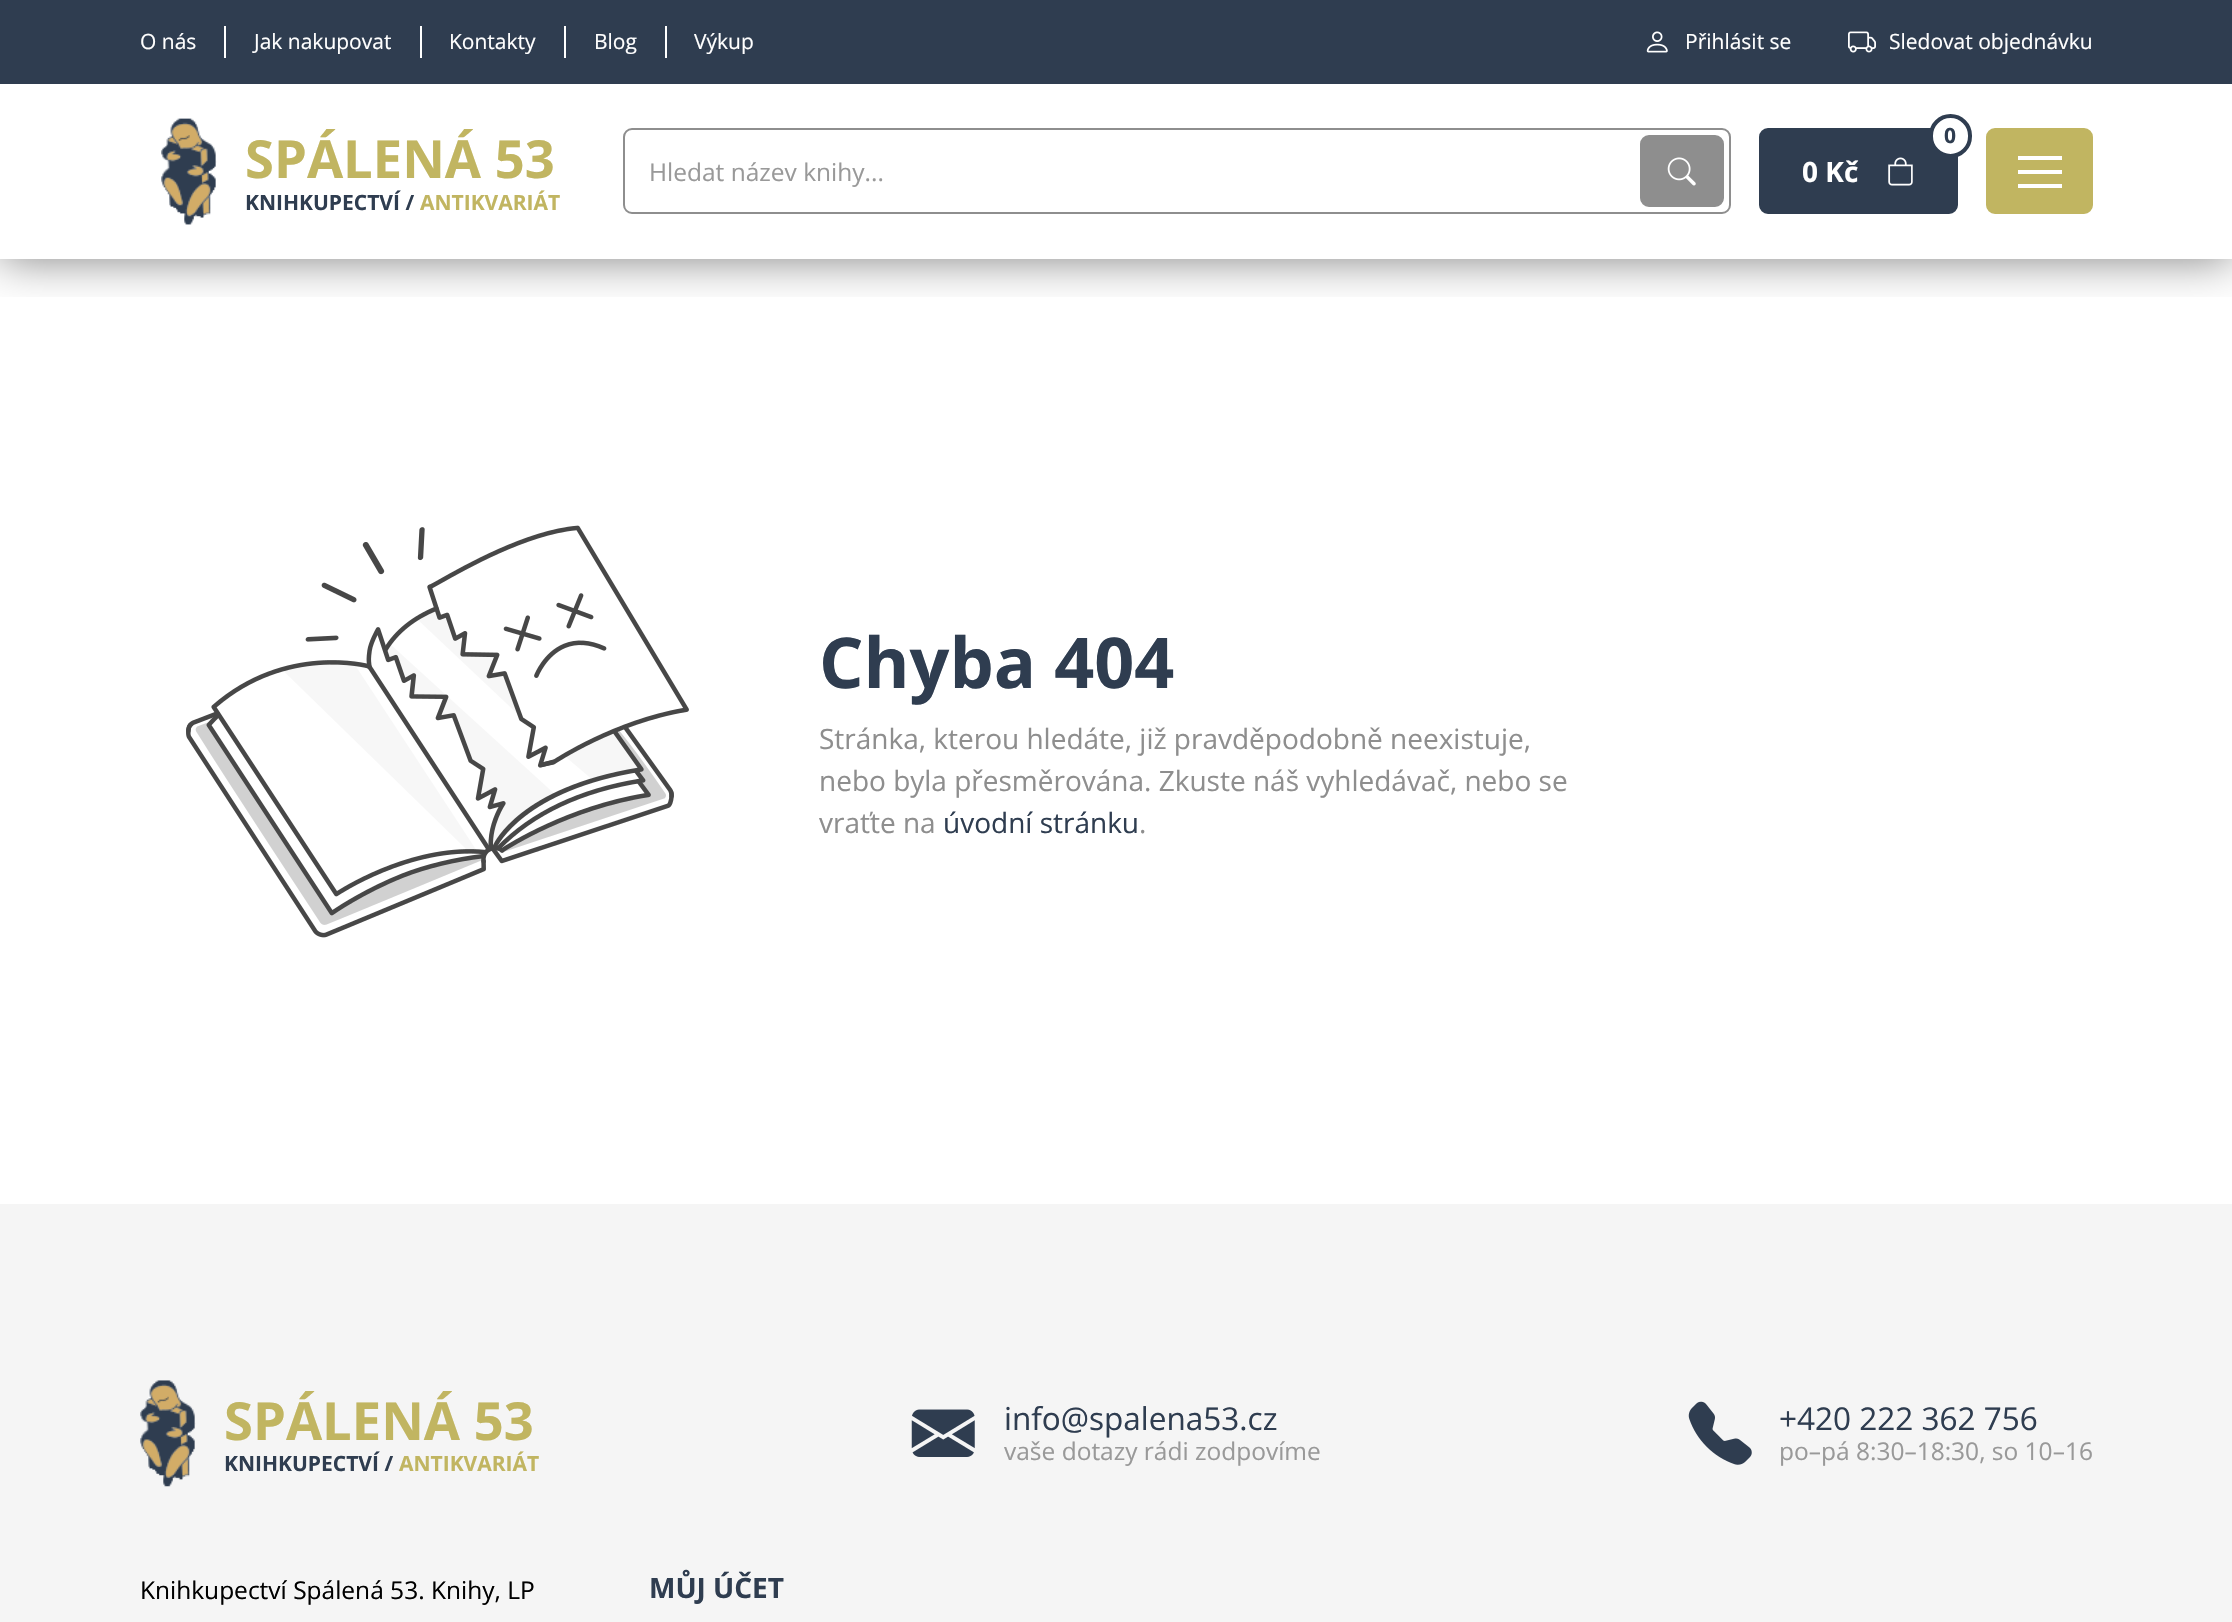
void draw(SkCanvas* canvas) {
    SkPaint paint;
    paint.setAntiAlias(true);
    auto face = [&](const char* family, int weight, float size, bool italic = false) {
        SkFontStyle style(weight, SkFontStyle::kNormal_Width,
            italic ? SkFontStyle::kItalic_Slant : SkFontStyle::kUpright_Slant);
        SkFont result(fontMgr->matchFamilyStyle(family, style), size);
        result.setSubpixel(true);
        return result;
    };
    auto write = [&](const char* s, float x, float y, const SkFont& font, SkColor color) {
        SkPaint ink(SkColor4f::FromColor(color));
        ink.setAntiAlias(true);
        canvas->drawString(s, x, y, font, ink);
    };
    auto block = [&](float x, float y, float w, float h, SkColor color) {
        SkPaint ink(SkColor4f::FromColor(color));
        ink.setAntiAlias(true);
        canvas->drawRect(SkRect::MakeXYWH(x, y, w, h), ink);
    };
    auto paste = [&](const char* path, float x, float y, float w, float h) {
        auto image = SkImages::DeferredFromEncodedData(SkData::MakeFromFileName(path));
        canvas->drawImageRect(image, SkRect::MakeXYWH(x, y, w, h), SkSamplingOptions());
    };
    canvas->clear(SK_ColorWHITE);
    canvas->save();
    canvas->clipRect(SkRect::MakeXYWH(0, 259, 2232, 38));
    paint.setColor(SkColorSetARGB(128, 0, 0, 0));
    paint.setMaskFilter(SkMaskFilter::MakeBlur(kNormal_SkBlurStyle, 22));
    canvas->drawRect(SkRect::MakeXYWH(0, 0, 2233, 259), paint);
    paint.setMaskFilter(nullptr);
    canvas->restore();
    block(0, 0, 2232, 84, SkColorSetRGB(47, 61, 80));
    auto kFont1 = face("Open Sans", 400, 21);
    write("O nás", 140, 49, kFont1, SK_ColorWHITE);
    block(224, 26, 2, 32, SK_ColorWHITE);
    write("Jak nakupovat", 254, 49, kFont1, SK_ColorWHITE);
    block(420, 26, 2, 32, SK_ColorWHITE);
    write("Kontakty", 449, 49, kFont1, SK_ColorWHITE);
    block(564, 26, 2, 32, SK_ColorWHITE);
    write("Blog", 594, 49, kFont1, SK_ColorWHITE);
    block(665, 26, 2, 32, SK_ColorWHITE);
    write("Výkup", 694, 49, kFont1, SK_ColorWHITE);
    paste("pic1.png", 1646, 31, 22, 22);
    write("Přihlásit se", 1685, 49, kFont1, SK_ColorWHITE);
    paste("pic2.png", 1848, 31, 28, 22);
    write("Sledovat objednávku", 1889, 49, kFont1, SK_ColorWHITE);
    paste("pic3.png", 161, 118, 56, 107);
    auto kFont2 = face("Open Sans", 700, 52.5f);
    write("SPÁLENÁ 53", 245, 178, kFont2, SkColorSetRGB(193, 181, 97));
    auto kFont3 = face("Open Sans", 700, 21);
    write("KNIHKUPECTVÍ /", 245, 210, kFont3, SkColorSetRGB(47, 61, 80));
    write("ANTIKVARIÁT", 420, 210, kFont3, SkColorSetRGB(193, 181, 97));
    paint.setStyle(SkPaint::kStroke_Style);
    paint.setStrokeWidth(2);
    paint.setColor(SkColorSetRGB(142, 142, 142));
    canvas->drawRoundRect(SkRect::MakeXYWH(624, 129, 1106, 84), 8, 8, paint);
    auto kFont4 = face("Open Sans", 400, 24.5f);
    write("Hledat název knihy...", 649, 181, kFont4, SkColorSetRGB(153, 153, 153));
    paint.setStyle(SkPaint::kFill_Style);
    canvas->drawRoundRect(SkRect::MakeXYWH(1642, 137, 80, 68), 7, 7, paint);
    paint.setStyle(SkPaint::kStroke_Style);
    paint.setStrokeWidth(4);
    canvas->drawRoundRect(SkRect::MakeXYWH(1642, 137, 80, 68), 7, 7, paint);
    paste("pic4.png", 1667, 157, 29, 29);
    paint.setStyle(SkPaint::kFill_Style);
    paint.setColor(SkColorSetRGB(47, 61, 80));
    canvas->drawRoundRect(SkRect::MakeXYWH(1761, 130, 195, 82), 7, 7, paint);
    paint.setStyle(SkPaint::kStroke_Style);
    canvas->drawRoundRect(SkRect::MakeXYWH(1761, 130, 195, 82), 7, 7, paint);
    paint.setStyle(SkPaint::kFill_Style);
    paint.setColor(SK_ColorWHITE);
    canvas->drawRoundRect(SkRect::MakeXYWH(1931, 116, 39, 40), 19.5f, 19.5f, paint);
    paint.setStyle(SkPaint::kStroke_Style);
    paint.setColor(SkColorSetRGB(47, 61, 80));
    canvas->drawRoundRect(SkRect::MakeXYWH(1931, 116, 39, 40), 19.5f, 19.5f, paint);
    write("0", 1944, 143, kFont3, SkColorSetRGB(47, 61, 80));
    auto kFont5 = face("Open Sans", 700, 28);
    write("0 Kč", 1802, 182, kFont5, SK_ColorWHITE);
    paste("pic5.png", 1888, 157, 25, 29);
    paint.setStyle(SkPaint::kFill_Style);
    paint.setColor(SkColorSetRGB(193, 181, 97));
    canvas->drawRoundRect(SkRect::MakeXYWH(1988, 130, 103, 82), 7, 7, paint);
    paint.setStyle(SkPaint::kStroke_Style);
    canvas->drawRoundRect(SkRect::MakeXYWH(1988, 130, 103, 82), 7, 7, paint);
    block(2018, 156, 44, 4, SK_ColorWHITE);
    block(2018, 170, 44, 4, SK_ColorWHITE);
    block(2018, 184, 44, 4, SK_ColorWHITE);
    paste("pic6.png", 186, 525, 503, 413);
    auto kFont6 = face("Open Sans", 700, 70);
    write("Chyba 404", 819, 688, kFont6, SkColorSetRGB(47, 61, 80));
    auto kFont7 = face("Open Sans", 400, 28);
    write("Stránka, kterou hledáte, již pravděpodobně neexistuje,", 819, 749, kFont7, SkColorSetRGB(142, 142, 142));
    write("nebo byla přesměrována. Zkuste náš vyhledávač, nebo se", 819, 791, kFont7, SkColorSetRGB(142, 142, 142));
    write("vraťte na", 819, 833, kFont7, SkColorSetRGB(142, 142, 142));
    write("úvodní stránku", 943, 833, kFont7, SkColorSetRGB(47, 61, 80));
    write(".", 1139, 833, kFont7, SkColorSetRGB(142, 142, 142));
    block(0, 1204, 2232, 418, SkColorSetRGB(245, 245, 245));
    paste("pic7.png", 140, 1380, 56, 107);
    write("SPÁLENÁ 53", 224, 1440, kFont2, SkColorSetRGB(193, 181, 97));
    write("KNIHKUPECTVÍ /", 224, 1471, kFont3, SkColorSetRGB(47, 61, 80));
    write("ANTIKVARIÁT", 399, 1471, kFont3, SkColorSetRGB(193, 181, 97));
    paste("pic8.png", 911, 1409, 64, 48);
    auto kFont8 = face("Open Sans", 400, 31.5f);
    write("info@spalena53.cz", 1004, 1430, kFont8, SkColorSetRGB(47, 61, 80));
    write("vaše dotazy rádi zodpovíme", 1004, 1460, kFont4, SkColorSetRGB(153, 153, 153));
    paste("pic9.png", 1688, 1401, 64, 64);
    write("+420 222 362 756", 1779, 1430, kFont8, SkColorSetRGB(47, 61, 80));
    write("po–pá 8:30–18:30, so 10–16", 1779, 1460, kFont4, SkColorSetRGB(153, 153, 153));
    write("Knihkupectví Spálená 53. Knihy, LP", 140, 1599, kFont4, SK_ColorBLACK);
    write("MŮJ ÚČET", 649, 1598, kFont5, SkColorSetRGB(47, 61, 80));
}
